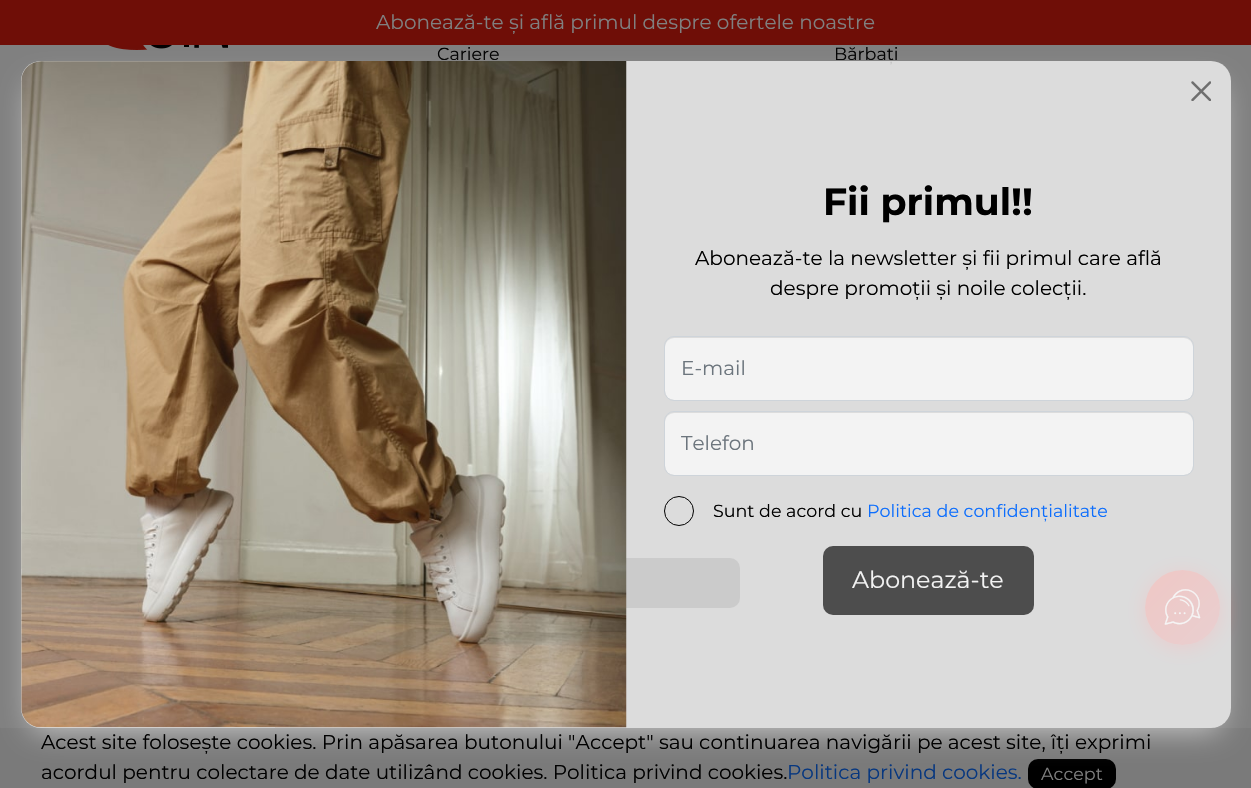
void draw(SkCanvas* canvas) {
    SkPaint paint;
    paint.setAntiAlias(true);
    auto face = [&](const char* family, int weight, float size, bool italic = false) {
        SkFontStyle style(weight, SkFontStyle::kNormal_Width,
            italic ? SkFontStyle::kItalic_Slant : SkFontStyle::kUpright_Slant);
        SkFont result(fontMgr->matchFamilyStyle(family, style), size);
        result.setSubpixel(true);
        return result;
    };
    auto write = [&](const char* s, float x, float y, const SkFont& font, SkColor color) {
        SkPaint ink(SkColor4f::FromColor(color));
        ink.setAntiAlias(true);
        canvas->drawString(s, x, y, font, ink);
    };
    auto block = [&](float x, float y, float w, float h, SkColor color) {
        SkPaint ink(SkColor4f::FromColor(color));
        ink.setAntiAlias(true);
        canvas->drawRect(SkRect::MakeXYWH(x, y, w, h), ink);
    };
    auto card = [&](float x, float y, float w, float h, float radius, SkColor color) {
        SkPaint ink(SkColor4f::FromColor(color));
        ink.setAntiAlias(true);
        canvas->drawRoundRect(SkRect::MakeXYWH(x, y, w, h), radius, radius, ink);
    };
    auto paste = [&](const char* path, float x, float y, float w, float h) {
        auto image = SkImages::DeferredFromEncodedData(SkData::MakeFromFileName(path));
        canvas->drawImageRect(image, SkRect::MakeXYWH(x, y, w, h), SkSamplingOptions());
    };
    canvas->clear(SkColorSetRGB(122, 122, 122));
    block(0, 0, 1251, 45, SkColorSetRGB(111, 14, 7));
    auto kFont1 = face("Montserrat", 400, 20);
    write("Abonează-te și află primul despre ofertele noastre", 376, 29, kFont1, SkColorSetRGB(128, 128, 128));
    block(0, 45, 1251, 683, SkColorSetRGB(128, 128, 128));
    paste("pic1.png", 108, 45, 120, 5);
    auto kFont2 = face("Montserrat", 400, 17.5f);
    write("Cariere", 437, 60, kFont2, SK_ColorBLACK);
    write("Bărbați", 834, 60, kFont2, SK_ColorBLACK);
    card(560, 558, 180, 50, 10, SkColorSetRGB(45, 45, 45));
    canvas->save();
    canvas->clipPath(SkPathBuilder(SkPathFillType::kEvenOdd).moveTo(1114, 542).lineTo(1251, 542).lineTo(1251, 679).lineTo(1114, 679).close().moveTo(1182.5f, 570).cubicTo(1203, 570, 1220, 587, 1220, 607.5f).cubicTo(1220, 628, 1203, 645, 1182.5f, 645).cubicTo(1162, 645, 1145, 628, 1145, 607.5f).cubicTo(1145, 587, 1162, 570, 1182.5f, 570).close().detach(), true);
    paint.setColor(SkColorSetARGB(153, 249, 0, 6));
    paint.setMaskFilter(SkMaskFilter::MakeBlur(kNormal_SkBlurStyle, 10));
    canvas->drawRoundRect(SkRect::MakeXYWH(1145, 573, 75, 75), 37.5f, 37.5f, paint);
    paint.setMaskFilter(nullptr);
    canvas->restore();
    {
        const SkColor colors[] = {SkColorSetRGB(221, 28, 14), SkColorSetARGB(128, 249, 0, 6)};
        const float stops[] = {0, 1};
        const SkPoint ends[] = {{1145, 570}, {1220, 645}};
        paint.setShader(SkGradientShader::MakeLinear(ends, colors, stops, 2, SkTileMode::kClamp));
        paint.setAlpha(255);
    }
    canvas->drawCircle(1182.5f, 607.5f, 37.5f, paint);
    paste("pic4.png", 1164, 589, 37, 36);
    card(1028, 759, 88, 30, 10, SK_ColorBLACK);
    canvas->save();
    canvas->clipPath(SkPathBuilder(SkPathFillType::kEvenOdd).moveTo(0, 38).lineTo(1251, 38).lineTo(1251, 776).lineTo(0, 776).close().moveTo(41, 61).lineTo(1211, 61).cubicTo(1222, 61, 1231, 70, 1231, 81).lineTo(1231, 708).cubicTo(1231, 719, 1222, 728, 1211, 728).lineTo(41, 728).cubicTo(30, 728, 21, 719, 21, 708).lineTo(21, 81).cubicTo(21, 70, 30, 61, 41, 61).close().detach(), true);
    paint.setShader(nullptr);
    paint.setColor(SkColorSetRGB(204, 204, 204));
    paint.setMaskFilter(SkMaskFilter::MakeBlur(kNormal_SkBlurStyle, 15));
    canvas->drawRoundRect(SkRect::MakeXYWH(31, 84, 1190, 646), 10, 10, paint);
    paint.setMaskFilter(nullptr);
    canvas->restore();
    card(21, 61, 1210, 667, 20, SkColorSetARGB(204, 243, 243, 243));
    paste("pic2.png", 1191, 81, 20, 20);
    paste("pic3.png", 21, 61, 606, 667);
    auto kFont3 = face("Montserrat", 700, 37.75f);
    write("Fii primul!!", 823, 215, kFont3, SK_ColorBLACK);
    write("Abonează-te la newsletter și fii primul care află", 695, 265, kFont1, SK_ColorBLACK);
    write("despre promoții și noile colecții.", 770, 295, kFont1, SK_ColorBLACK);
    card(665, 338, 528, 62, 9, SkColorSetRGB(243, 243, 243));
    paint.setStyle(SkPaint::kStroke_Style);
    paint.setStrokeWidth(1);
    paint.setColor(SkColorSetRGB(206, 212, 218));
    canvas->drawRoundRect(SkRect::MakeXYWH(664.5f, 336.5f, 529, 64), 9.5f, 9.5f, paint);
    write("E-mail", 681, 375, kFont1, SkColorSetRGB(108, 117, 125));
    card(665, 413, 528, 62, 9, SkColorSetRGB(243, 243, 243));
    canvas->drawRoundRect(SkRect::MakeXYWH(664.5f, 411.5f, 529, 64), 9.5f, 9.5f, paint);
    write("Telefon", 681, 450, kFont1, SkColorSetRGB(108, 117, 125));
    paint.setColor(SK_ColorBLACK);
    canvas->drawCircle(679, 511, 14.5f, paint);
    write("Sunt de acord cu", 713, 517, kFont2, SK_ColorBLACK);
    write("Politica de confidențialitate", 867, 517, kFont2, SkColorSetRGB(13, 110, 253));
    card(823, 546, 211, 69, 10, SkColorSetRGB(77, 77, 77));
    auto kFont4 = face("Montserrat", 400, 23.75f);
    write("Abonează-te", 852, 588, kFont4, SkColorSetRGB(243, 243, 243));
    write("Acest site folosește cookies. Prin apăsarea butonului \"Accept\" sau continuarea navigării pe acest site, îți exprimi", 41, 749, kFont1, SK_ColorBLACK);
    write("acordul pentru colectare de date utilizând cookies. Politica privind cookies.", 41, 779, kFont1, SK_ColorBLACK);
    write("Politica privind cookies.", 787, 779, kFont1, SkColorSetRGB(7, 55, 127));
    write("Accept", 1041, 780, kFont2, SkColorSetRGB(128, 128, 128));
}
